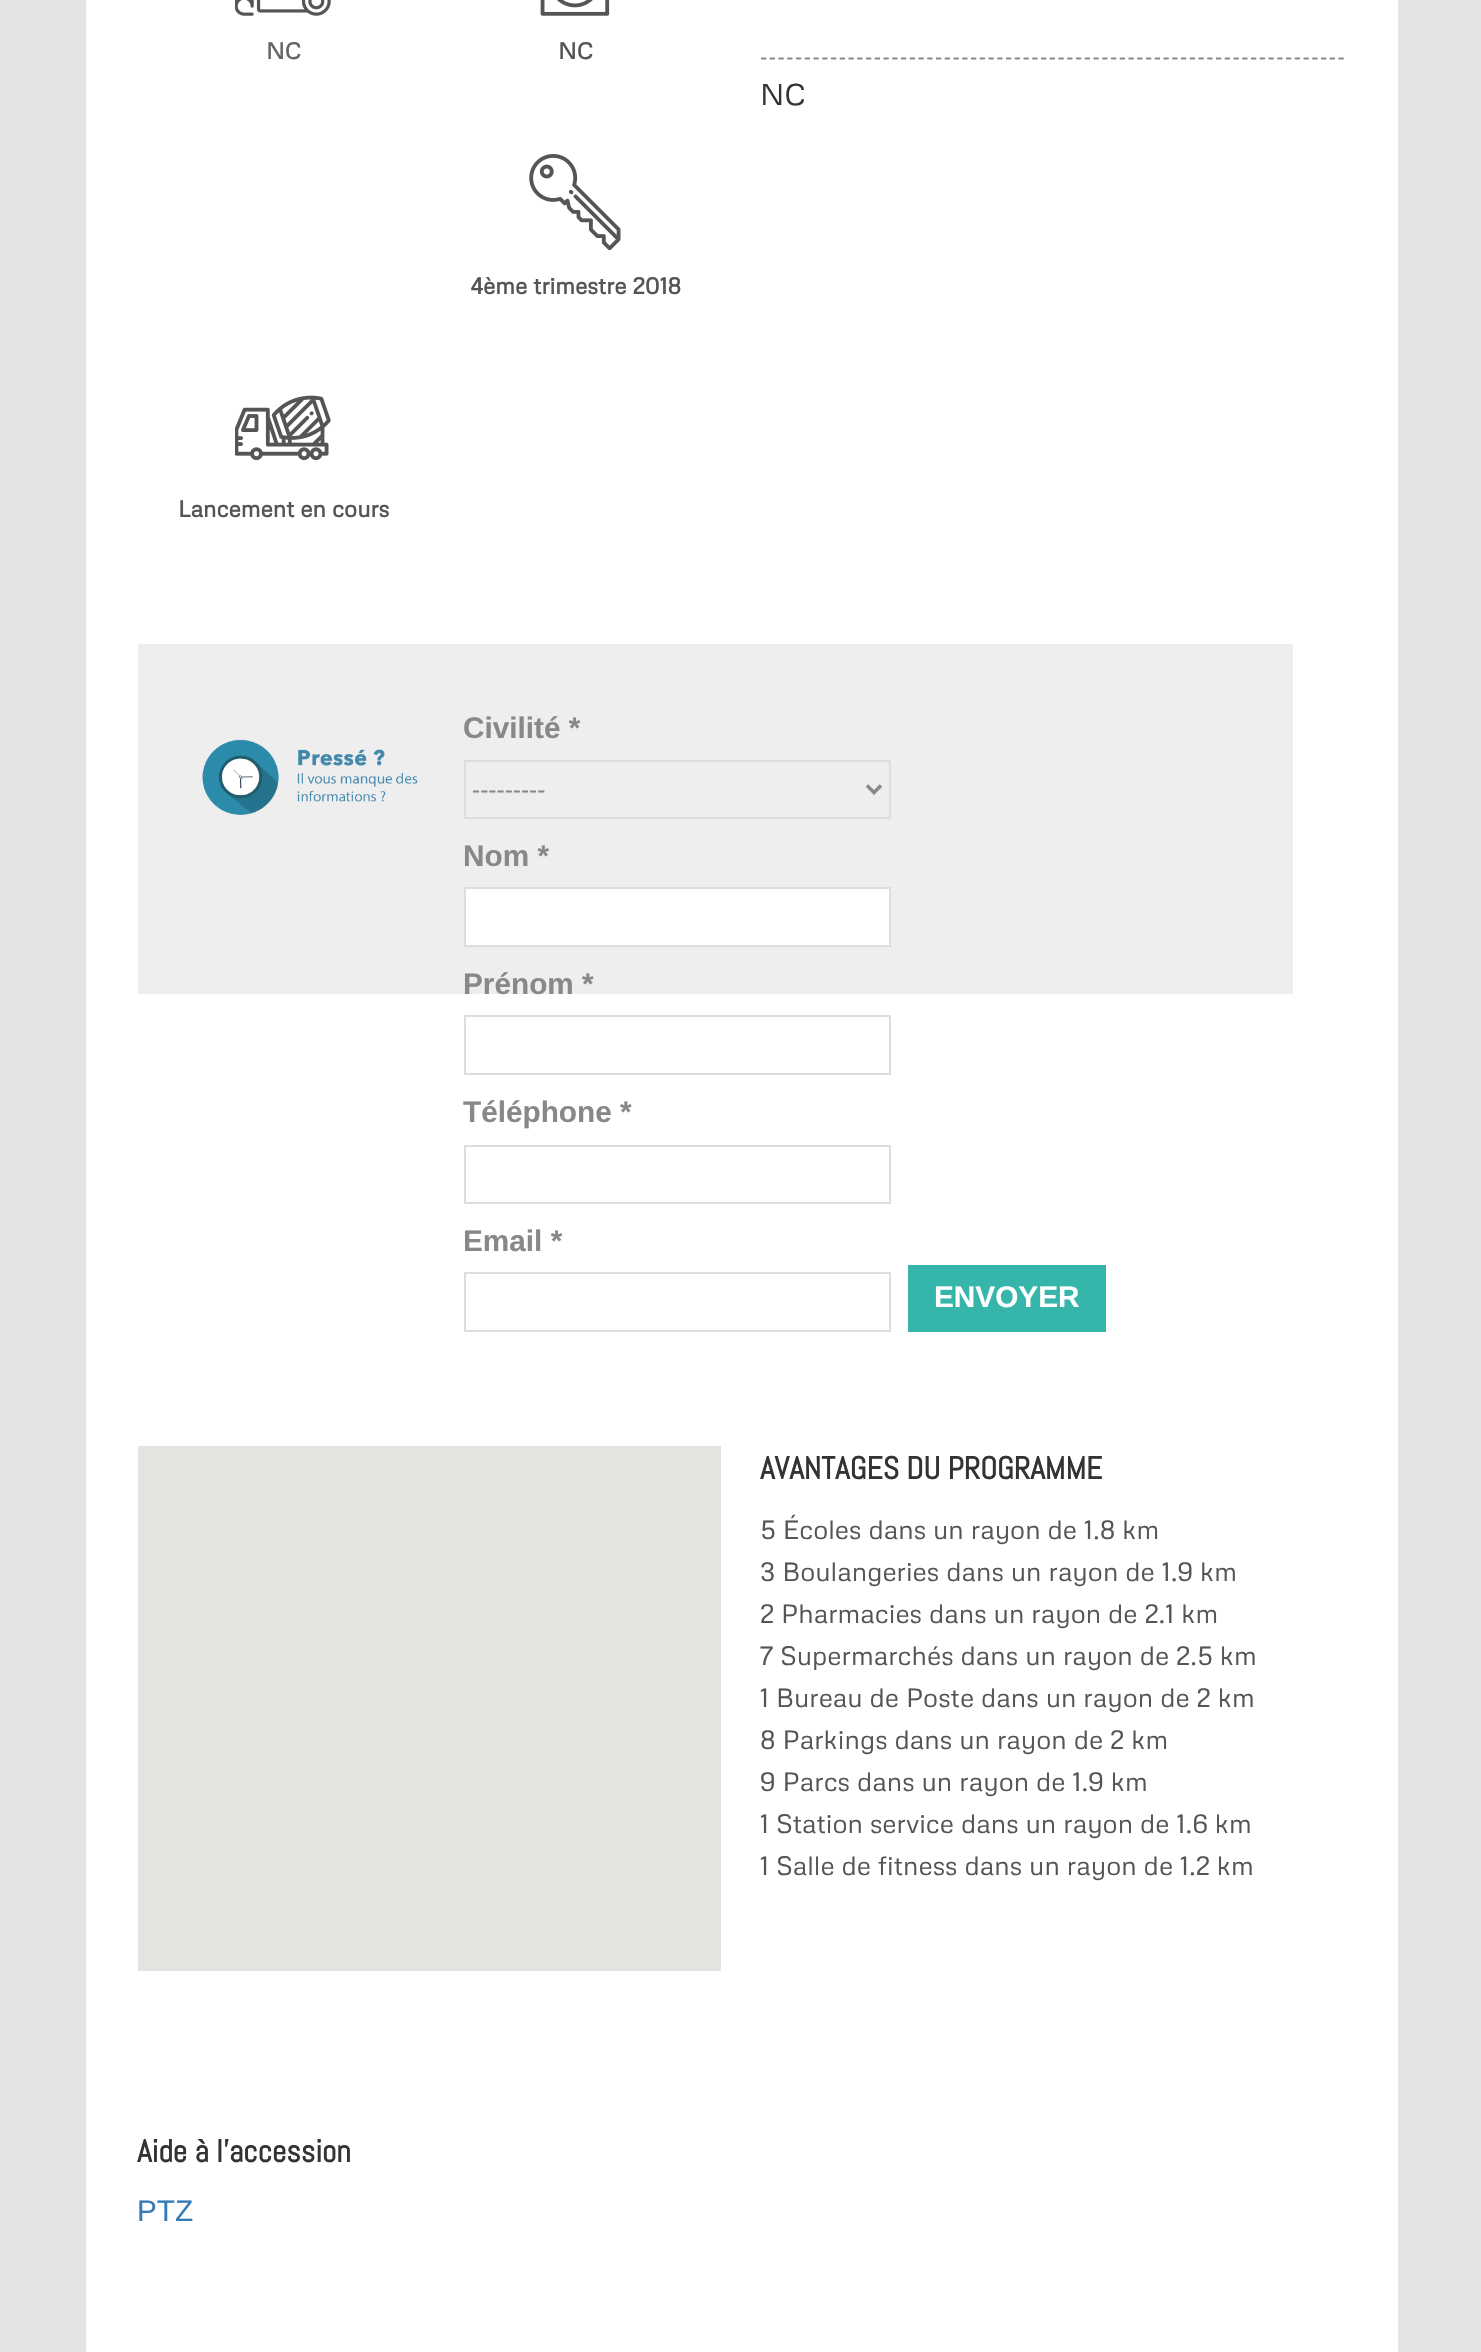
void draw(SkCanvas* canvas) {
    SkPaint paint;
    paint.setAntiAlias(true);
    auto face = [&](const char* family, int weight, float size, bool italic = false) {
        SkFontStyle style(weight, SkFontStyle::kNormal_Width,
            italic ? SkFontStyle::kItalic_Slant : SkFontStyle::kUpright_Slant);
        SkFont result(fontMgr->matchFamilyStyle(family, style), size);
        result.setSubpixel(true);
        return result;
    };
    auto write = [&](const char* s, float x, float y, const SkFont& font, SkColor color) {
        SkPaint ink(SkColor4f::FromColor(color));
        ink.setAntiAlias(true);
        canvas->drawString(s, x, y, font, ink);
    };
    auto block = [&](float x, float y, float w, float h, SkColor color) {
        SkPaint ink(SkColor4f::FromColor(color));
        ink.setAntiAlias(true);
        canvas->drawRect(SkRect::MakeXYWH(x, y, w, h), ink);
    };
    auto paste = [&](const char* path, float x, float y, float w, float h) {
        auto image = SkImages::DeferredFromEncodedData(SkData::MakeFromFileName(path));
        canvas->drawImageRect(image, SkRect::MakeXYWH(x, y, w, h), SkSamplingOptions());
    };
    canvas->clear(SkColorSetRGB(229, 228, 228));
    block(86, 0, 1312, 2352, SK_ColorWHITE);
    paste("pic1.png", 235, 0, 96, 16);
    auto kFont1 = face("Metrophobic", 700, 22.75f);
    write("NC", 266, 59, kFont1, SkColorSetRGB(102, 102, 102));
    paste("pic2.png", 540, 0, 70, 16);
    write("NC", 558, 59, kFont1, SkColorSetRGB(85, 85, 85));
    paste("pic3.png", 529, 154, 92, 96);
    write("4ème trimestre 2018", 470, 294, kFont1, SkColorSetRGB(85, 85, 85));
    paste("pic4.png", 235, 395, 96, 66);
    write("Lancement en cours", 178, 517, kFont1, SkColorSetRGB(85, 85, 85));
    paint.setStyle(SkPaint::kStroke_Style);
    paint.setStrokeWidth(1.8f);
    paint.setColor(SkColorSetRGB(136, 136, 136));
    paint.setPathEffect(SkDashPathEffect::Make({{5.25f, 3.5f}}, 0));
    canvas->drawPath(SkPathBuilder().moveTo(761, 58.5f).lineTo(1344, 58.5f).detach(), paint);
    paint.setPathEffect(nullptr);
    auto kFont2 = face("Metrophobic", 400, 29.75f);
    write("NC", 760, 105, kFont2, SkColorSetRGB(51, 51, 51));
    block(138, 644, 1155, 350, SkColorSetRGB(238, 238, 238));
    paste("pic5.png", 202, 739, 216, 76);
    auto kFont3 = face("Liberation Sans", 700, 29.75f);
    write("Civilité *", 463, 738, kFont3, SkColorSetRGB(136, 136, 136));
    paint.setStrokeWidth(2);
    paint.setColor(SkColorSetRGB(221, 221, 221));
    canvas->drawRect(SkRect::MakeXYWH(465, 761, 425, 57), paint);
    paint.setStrokeWidth(3.5f);
    paint.setColor(SkColorSetRGB(136, 136, 136));
    canvas->drawPath(SkPathBuilder().moveTo(867, 785.5f).lineTo(874, 792.5f).lineTo(881, 785.5f).detach(), paint);
    canvas->save();
    canvas->clipRect(SkRect::MakeXYWH(473, 774, 388, 31));
    auto kFont4 = face("Liberation Sans", 400, 24.5f);
    write("---------", 472, 798, kFont4, SkColorSetRGB(136, 136, 136));
    canvas->restore();
    write("Nom *", 463, 866, kFont3, SkColorSetRGB(136, 136, 136));
    paint.setStyle(SkPaint::kFill_Style);
    paint.setColor(SK_ColorWHITE);
    canvas->drawRect(SkRect::MakeXYWH(465, 888, 425, 58), paint);
    paint.setStyle(SkPaint::kStroke_Style);
    paint.setStrokeWidth(2);
    paint.setColor(SkColorSetRGB(221, 221, 221));
    canvas->drawRect(SkRect::MakeXYWH(465, 888, 425, 58), paint);
    write("Prénom *", 463, 994, kFont3, SkColorSetRGB(136, 136, 136));
    canvas->drawRect(SkRect::MakeXYWH(465, 1016, 425, 58), paint);
    write("Téléphone *", 463, 1122, kFont3, SkColorSetRGB(136, 136, 136));
    canvas->drawRect(SkRect::MakeXYWH(465, 1146, 425, 57), paint);
    write("Email *", 463, 1251, kFont3, SkColorSetRGB(136, 136, 136));
    canvas->drawRect(SkRect::MakeXYWH(465, 1273, 425, 58), paint);
    block(908, 1265, 198, 67, SkColorSetRGB(54, 181, 171));
    write("ENVOYER", 934, 1307, kFont3, SK_ColorWHITE);
    block(138, 1446, 583, 525, SkColorSetRGB(229, 227, 223));
    auto kFont5 = face("Abel", 700, 31.5f);
    write("AVANTAGES DU PROGRAMME", 760, 1479, kFont5, SkColorSetRGB(51, 51, 51));
    auto kFont6 = face("Metrophobic", 400, 26.25f);
    write("5 Écoles dans un rayon de 1.8 km", 760, 1539, kFont6, SkColorSetRGB(85, 85, 85));
    write("3 Boulangeries dans un rayon de 1.9 km", 760, 1581, kFont6, SkColorSetRGB(85, 85, 85));
    write("2 Pharmacies dans un rayon de 2.1 km", 760, 1623, kFont6, SkColorSetRGB(85, 85, 85));
    write("7 Supermarchés dans un rayon de 2.5 km", 760, 1665, kFont6, SkColorSetRGB(85, 85, 85));
    write("1 Bureau de Poste dans un rayon de 2 km", 760, 1707, kFont6, SkColorSetRGB(85, 85, 85));
    write("8 Parkings dans un rayon de 2 km", 760, 1749, kFont6, SkColorSetRGB(85, 85, 85));
    write("9 Parcs dans un rayon de 1.9 km", 760, 1791, kFont6, SkColorSetRGB(85, 85, 85));
    write("1 Station service dans un rayon de 1.6 km", 760, 1833, kFont6, SkColorSetRGB(85, 85, 85));
    write("1 Salle de fitness dans un rayon de 1.2 km", 760, 1875, kFont6, SkColorSetRGB(85, 85, 85));
    write("Aide à l'accession", 137, 2162, kFont5, SkColorSetRGB(51, 51, 51));
    auto kFont7 = face("Liberation Sans", 400, 29.75f);
    write("PTZ", 137, 2221, kFont7, SkColorSetRGB(51, 122, 183));
}
